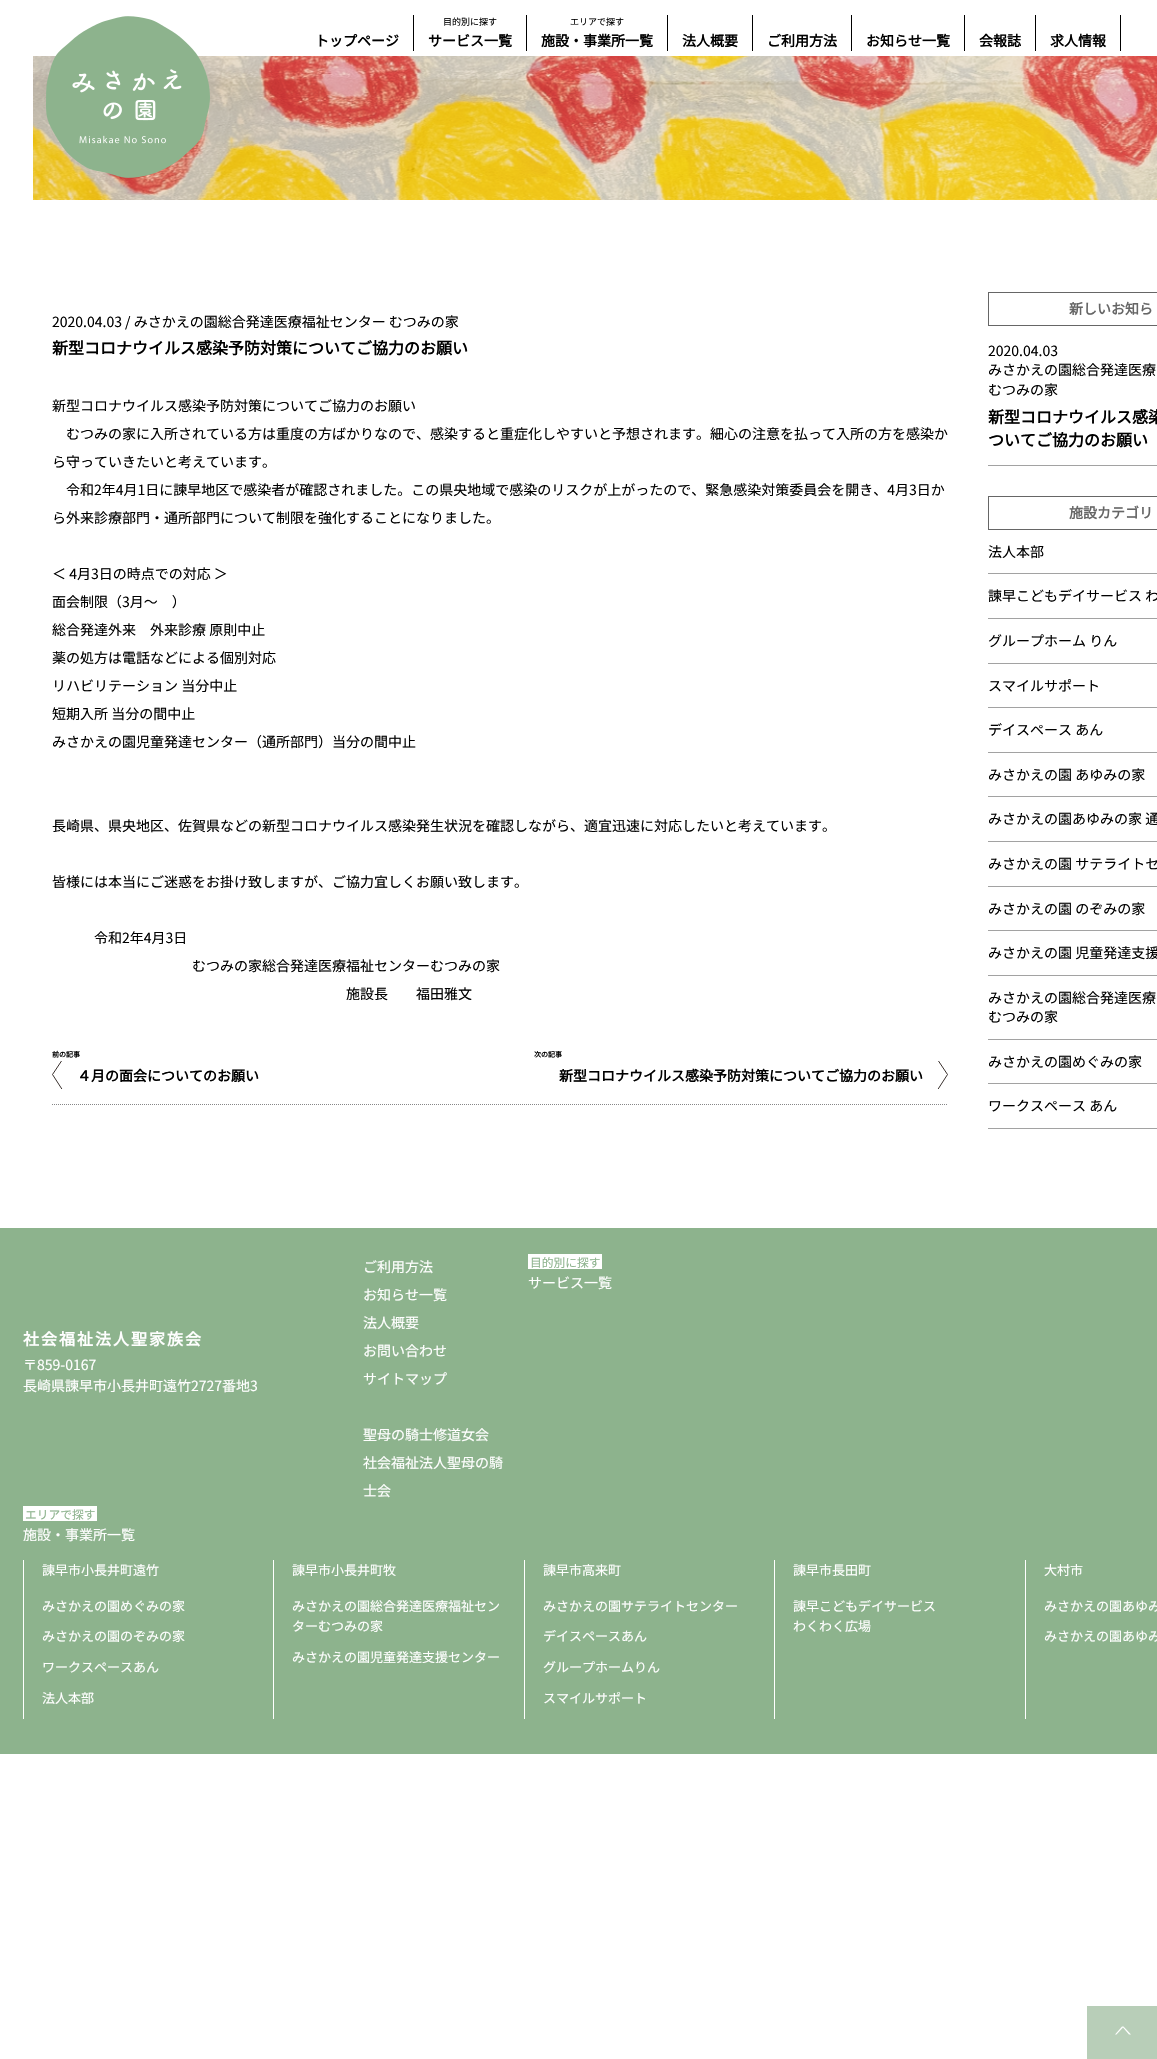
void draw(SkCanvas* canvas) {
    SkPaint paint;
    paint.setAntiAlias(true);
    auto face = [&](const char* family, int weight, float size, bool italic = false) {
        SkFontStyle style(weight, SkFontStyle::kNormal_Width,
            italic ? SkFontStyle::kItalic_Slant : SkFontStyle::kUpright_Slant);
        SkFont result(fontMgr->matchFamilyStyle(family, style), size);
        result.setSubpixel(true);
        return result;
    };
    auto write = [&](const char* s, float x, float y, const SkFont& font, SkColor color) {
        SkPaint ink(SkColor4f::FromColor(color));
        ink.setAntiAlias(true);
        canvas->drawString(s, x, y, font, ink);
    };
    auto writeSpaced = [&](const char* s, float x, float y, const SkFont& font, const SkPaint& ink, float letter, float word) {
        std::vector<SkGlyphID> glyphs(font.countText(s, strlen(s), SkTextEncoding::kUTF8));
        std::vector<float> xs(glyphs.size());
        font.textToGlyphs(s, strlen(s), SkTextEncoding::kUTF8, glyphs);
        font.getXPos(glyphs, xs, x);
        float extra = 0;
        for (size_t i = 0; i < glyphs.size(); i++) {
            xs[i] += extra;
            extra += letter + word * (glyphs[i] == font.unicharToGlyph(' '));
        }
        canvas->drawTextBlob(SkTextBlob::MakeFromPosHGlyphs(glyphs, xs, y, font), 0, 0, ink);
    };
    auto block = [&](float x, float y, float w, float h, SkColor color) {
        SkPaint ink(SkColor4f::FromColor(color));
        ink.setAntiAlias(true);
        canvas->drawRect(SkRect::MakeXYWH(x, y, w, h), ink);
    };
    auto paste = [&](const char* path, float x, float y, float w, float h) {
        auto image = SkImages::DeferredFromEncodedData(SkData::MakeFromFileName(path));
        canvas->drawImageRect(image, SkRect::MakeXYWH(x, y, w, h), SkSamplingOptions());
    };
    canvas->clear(SK_ColorWHITE);
    paste("pic2.png", 33, 56, 1124, 144);
    paste("pic1.png", 46, 16, 164, 162);
    block(413, 15, 1, 36, SK_ColorBLACK);
    auto kFont1 = face("Noto Sans JP", 700, 14);
    write("トップページ", 315, 46, kFont1, SK_ColorBLACK);
    block(526, 15, 1, 36, SK_ColorBLACK);
    auto kFont2 = face("Noto Sans JP", 100, 9);
    write("目的別に探す", 443, 25, kFont2, SK_ColorBLACK);
    write("サービス一覧", 428, 46, kFont1, SK_ColorBLACK);
    block(667, 15, 1, 36, SK_ColorBLACK);
    write("エリアで探す", 570, 25, kFont2, SK_ColorBLACK);
    write("施設・事業所一覧", 541, 46, kFont1, SK_ColorBLACK);
    block(752, 15, 1, 36, SK_ColorBLACK);
    write("法人概要", 682, 46, kFont1, SK_ColorBLACK);
    block(851, 15, 1, 36, SK_ColorBLACK);
    write("ご利用方法", 767, 46, kFont1, SK_ColorBLACK);
    block(964, 15, 1, 36, SK_ColorBLACK);
    write("お知らせ一覧", 866, 46, kFont1, SK_ColorBLACK);
    block(1035, 15, 1, 36, SK_ColorBLACK);
    write("会報誌", 979, 46, kFont1, SK_ColorBLACK);
    block(1120, 15, 1, 36, SK_ColorBLACK);
    write("求人情報", 1050, 46, kFont1, SK_ColorBLACK);
    paint.setStyle(SkPaint::kStroke_Style);
    paint.setStrokeWidth(1);
    paint.setColor(SkColorSetRGB(134, 134, 135));
    paint.setPathEffect(SkDashPathEffect::Make({{1, 1}}, 0));
    canvas->drawPath(SkPathBuilder().moveTo(52, 1104.5f).lineTo(948, 1104.5f).detach(), paint);
    paint.setPathEffect(nullptr);
    auto kFont3 = face("Noto Sans JP", 100, 14);
    write("2020.04.03 / みさかえの園総合発達医療福祉センター むつみの家", 52, 327, kFont3, SK_ColorBLACK);
    auto kFont4 = face("Noto Sans JP", 700, 16);
    write("新型コロナウイルス感染予防対策についてご協力のお願い", 52, 354, kFont4, SK_ColorBLACK);
    write("新型コロナウイルス感染予防対策についてご協力のお願い", 52, 411, kFont3, SK_ColorBLACK);
    write("むつみの家に入所されている方は重度の方ばかりなので、感染すると重症化しやすいと予想されます。細心の注意を払って入所の方を感染か", 66, 439, kFont3, SK_ColorBLACK);
    write("ら守っていきたいと考えています。", 52, 467, kFont3, SK_ColorBLACK);
    write("令和2年4月1日に諫早地区で感染者が確認されました。この県央地域で感染のリスクが上がったので、緊急感染対策委員会を開き、4月3日か", 66, 495, kFont3, SK_ColorBLACK);
    write("ら外来診療部門・通所部門について制限を強化することになりました。", 52, 523, kFont3, SK_ColorBLACK);
    write("＜ 4月3日の時点での対応 ＞", 52, 579, kFont3, SK_ColorBLACK);
    write("面会制限（3月～　）", 52, 607, kFont3, SK_ColorBLACK);
    write("総合発達外来　外来診療 原則中止", 52, 635, kFont3, SK_ColorBLACK);
    write("薬の処方は電話などによる個別対応", 52, 663, kFont3, SK_ColorBLACK);
    write("リハビリテーション 当分中止", 52, 691, kFont3, SK_ColorBLACK);
    write("短期入所 当分の間中止", 52, 719, kFont3, SK_ColorBLACK);
    write("みさかえの園児童発達センター（通所部門）当分の間中止", 52, 747, kFont3, SK_ColorBLACK);
    write("長崎県、県央地区、佐賀県などの新型コロナウイルス感染発生状況を確認しながら、適宜迅速に対応したいと考えています。", 52, 831, kFont3, SK_ColorBLACK);
    write("皆様には本当にご迷惑をお掛け致しますが、ご協力宜しくお願い致します。", 52, 887, kFont3, SK_ColorBLACK);
    write("令和2年4月3日", 94, 943, kFont3, SK_ColorBLACK);
    write("むつみの家総合発達医療福祉センターむつみの家", 192, 971, kFont3, SK_ColorBLACK);
    write("施設長　　福田雅文", 346, 999, kFont3, SK_ColorBLACK);
    auto kFont5 = face("Noto Sans JP", 700, 7);
    write("前の記事", 52, 1057, kFont5, SK_ColorBLACK);
    canvas->save();
    canvas->clipRect(SkRect::MakeXYWH(52, 1061, 11, 28));
    paint.setStrokeWidth(0.9f);
    paint.setColor(SkColorSetRGB(35, 24, 21));
    canvas->drawPath(SkPathBuilder().moveTo(62.5f, 1090).lineTo(52.5f, 1074.5f).lineTo(62.5f, 1059.5f).detach(), paint);
    canvas->restore();
    write("４月の面会についてのお願い", 77, 1081, kFont1, SK_ColorBLACK);
    write("次の記事", 534, 1057, kFont5, SK_ColorBLACK);
    canvas->save();
    canvas->clipRect(SkRect::MakeXYWH(937, 1061, 11, 28));
    canvas->drawPath(SkPathBuilder().moveTo(937.5f, 1059.5f).lineTo(947.5f, 1074.5f).lineTo(937.5f, 1090).detach(), paint);
    canvas->restore();
    write("新型コロナウイルス感染予防対策についてご協力のお願い", 559, 1081, kFont1, SK_ColorBLACK);
    paint.setStrokeWidth(1);
    paint.setColor(SkColorSetRGB(102, 102, 102));
    canvas->drawRect(SkRect::MakeXYWH(988.5f, 292.5f, 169, 33), paint);
    write("新しいお知ら", 1069, 314, kFont1, SkColorSetRGB(102, 102, 102));
    block(988, 465, 169, 1, SkColorSetRGB(162, 162, 162));
    write("2020.04.03", 988, 356, kFont3, SK_ColorBLACK);
    write("みさかえの園総合発達医療", 988, 375, kFont3, SK_ColorBLACK);
    write("むつみの家", 988, 395, kFont3, SK_ColorBLACK);
    write("新型コロナウイルス感染", 988, 423, kFont4, SK_ColorBLACK);
    write("ついてご協力のお願い", 988, 446, kFont4, SK_ColorBLACK);
    canvas->drawRect(SkRect::MakeXYWH(988.5f, 496.5f, 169, 33), paint);
    write("施設カテゴリ", 1069, 518, kFont1, SkColorSetRGB(102, 102, 102));
    block(988, 573, 169, 1, SkColorSetRGB(162, 162, 162));
    write("法人本部", 988, 557, kFont3, SK_ColorBLACK);
    block(988, 618, 169, 1, SkColorSetRGB(162, 162, 162));
    write("諫早こどもデイサービス わ", 988, 601, kFont3, SK_ColorBLACK);
    block(988, 663, 169, 1, SkColorSetRGB(162, 162, 162));
    write("グループホーム りん", 988, 646, kFont3, SK_ColorBLACK);
    block(988, 707, 169, 1, SkColorSetRGB(162, 162, 162));
    write("スマイルサポート", 988, 691, kFont3, SK_ColorBLACK);
    block(988, 752, 169, 1, SkColorSetRGB(162, 162, 162));
    write("デイスペース あん", 988, 735, kFont3, SK_ColorBLACK);
    block(988, 796, 169, 1, SkColorSetRGB(162, 162, 162));
    write("みさかえの園 あゆみの家", 988, 780, kFont3, SK_ColorBLACK);
    block(988, 841, 169, 1, SkColorSetRGB(162, 162, 162));
    write("みさかえの園あゆみの家 通", 988, 824, kFont3, SK_ColorBLACK);
    block(988, 886, 169, 1, SkColorSetRGB(162, 162, 162));
    write("みさかえの園 サテライトセ", 988, 869, kFont3, SK_ColorBLACK);
    block(988, 930, 169, 1, SkColorSetRGB(162, 162, 162));
    write("みさかえの園 のぞみの家", 988, 914, kFont3, SK_ColorBLACK);
    block(988, 975, 169, 1, SkColorSetRGB(162, 162, 162));
    write("みさかえの園 児童発達支援", 988, 958, kFont3, SK_ColorBLACK);
    block(988, 1039, 169, 1, SkColorSetRGB(162, 162, 162));
    write("みさかえの園総合発達医療", 988, 1003, kFont3, SK_ColorBLACK);
    write("むつみの家", 988, 1022, kFont3, SK_ColorBLACK);
    block(988, 1083, 169, 1, SkColorSetRGB(162, 162, 162));
    write("みさかえの園めぐみの家", 988, 1067, kFont3, SK_ColorBLACK);
    block(988, 1128, 169, 1, SkColorSetRGB(162, 162, 162));
    write("ワークスペース あん", 988, 1111, kFont3, SK_ColorBLACK);
    block(0, 1228, 1157, 526, SkColorSetRGB(141, 179, 141));
    write("ご利用方法", 363, 1272, kFont3, SK_ColorWHITE);
    write("お知らせ一覧", 363, 1300, kFont3, SK_ColorWHITE);
    write("法人概要", 363, 1328, kFont3, SK_ColorWHITE);
    write("お問い合わせ", 363, 1356, kFont3, SK_ColorWHITE);
    write("サイトマップ", 363, 1384, kFont3, SK_ColorWHITE);
    write("聖母の騎士修道女会", 363, 1440, kFont3, SK_ColorWHITE);
    write("社会福祉法人聖母の騎", 363, 1468, kFont3, SK_ColorWHITE);
    write("士会", 363, 1496, kFont3, SK_ColorWHITE);
    block(528, 1254, 74, 15, SK_ColorWHITE);
    auto kFont6 = face("Noto Sans JP", 100, 11.75f);
    write("目的別に探す", 530, 1267, kFont6, SkColorSetRGB(141, 179, 141));
    write("サービス一覧", 528, 1288, kFont3, SK_ColorWHITE);
    block(23, 1506, 74, 15, SK_ColorWHITE);
    write("エリアで探す", 25, 1519, kFont6, SkColorSetRGB(141, 179, 141));
    write("施設・事業所一覧", 23, 1540, kFont3, SK_ColorWHITE);
    block(273, 1560, 1, 159, SK_ColorWHITE);
    block(23, 1560, 1, 159, SK_ColorWHITE);
    auto kFont7 = face("Noto Sans JP", 100, 13);
    write("諫早市小長井町遠竹", 42, 1575, kFont7, SK_ColorWHITE);
    write("みさかえの園めぐみの家", 42, 1611, kFont7, SK_ColorWHITE);
    write("みさかえの園のぞみの家", 42, 1641, kFont7, SK_ColorWHITE);
    write("ワークスペースあん", 42, 1672, kFont7, SK_ColorWHITE);
    write("法人本部", 42, 1703, kFont7, SK_ColorWHITE);
    block(524, 1560, 1, 159, SK_ColorWHITE);
    write("諫早市小長井町牧", 292, 1575, kFont7, SK_ColorWHITE);
    write("みさかえの園総合発達医療福祉セン", 292, 1611, kFont7, SK_ColorWHITE);
    write("ターむつみの家", 292, 1631, kFont7, SK_ColorWHITE);
    write("みさかえの園児童発達支援センター", 292, 1662, kFont7, SK_ColorWHITE);
    block(774, 1560, 1, 159, SK_ColorWHITE);
    write("諫早市高来町", 543, 1575, kFont7, SK_ColorWHITE);
    write("みさかえの園サテライトセンター", 543, 1611, kFont7, SK_ColorWHITE);
    write("デイスペースあん", 543, 1641, kFont7, SK_ColorWHITE);
    write("グループホームりん", 543, 1672, kFont7, SK_ColorWHITE);
    write("スマイルサポート", 543, 1703, kFont7, SK_ColorWHITE);
    block(1025, 1560, 1, 159, SK_ColorWHITE);
    write("諫早市長田町", 793, 1575, kFont7, SK_ColorWHITE);
    write("諫早こどもデイサービス", 793, 1611, kFont7, SK_ColorWHITE);
    write("わくわく広場", 793, 1631, kFont7, SK_ColorWHITE);
    write("大村市", 1044, 1575, kFont7, SK_ColorWHITE);
    write("みさかえの園あゆみ", 1044, 1611, kFont7, SK_ColorWHITE);
    write("みさかえの園あゆみ", 1044, 1641, kFont7, SK_ColorWHITE);
    paint.setStyle(SkPaint::kFill_Style);
    paint.setColor(SK_ColorWHITE);
    writeSpaced("社会福祉法人聖家族会", 23, 1345, kFont4, paint, 2, 0);
    write("〒859-0167", 23, 1370, kFont3, SK_ColorWHITE);
    write("長崎県諫早市小長井町遠竹2727番地3", 23, 1391, kFont3, SK_ColorWHITE);
    block(1087, 2006, 70, 53, SkColorSetRGB(184, 206, 184));
    canvas->drawPath(SkPathBuilder().moveTo(1122, 2026.5f).lineTo(1123.5f, 2026.5f).lineTo(1131, 2034.5f).lineTo(1129, 2034.5f).lineTo(1123, 2027.5f).lineTo(1116.5f, 2034.5f).lineTo(1115, 2034.5f).close().detach(), paint);
}
